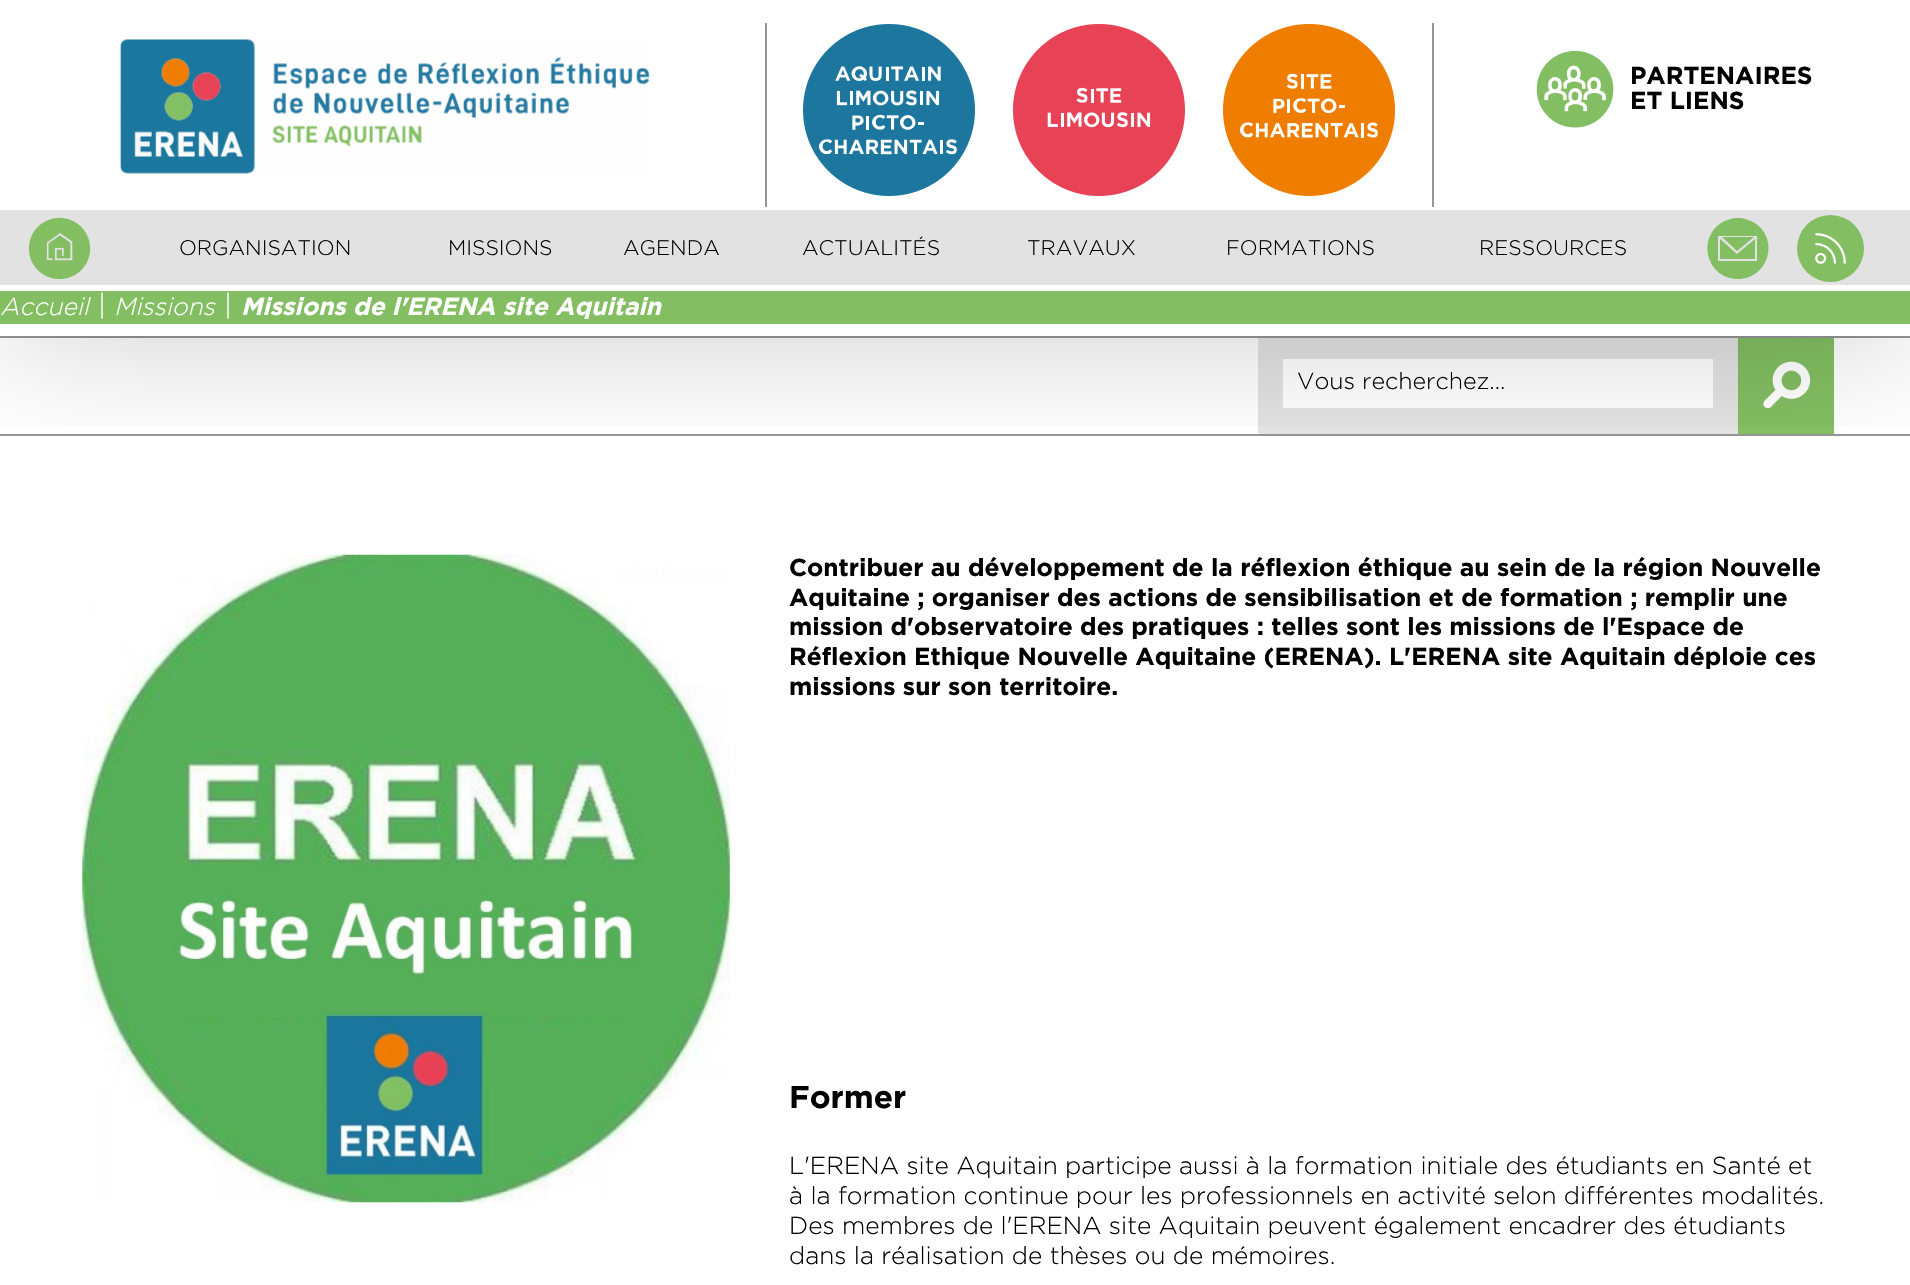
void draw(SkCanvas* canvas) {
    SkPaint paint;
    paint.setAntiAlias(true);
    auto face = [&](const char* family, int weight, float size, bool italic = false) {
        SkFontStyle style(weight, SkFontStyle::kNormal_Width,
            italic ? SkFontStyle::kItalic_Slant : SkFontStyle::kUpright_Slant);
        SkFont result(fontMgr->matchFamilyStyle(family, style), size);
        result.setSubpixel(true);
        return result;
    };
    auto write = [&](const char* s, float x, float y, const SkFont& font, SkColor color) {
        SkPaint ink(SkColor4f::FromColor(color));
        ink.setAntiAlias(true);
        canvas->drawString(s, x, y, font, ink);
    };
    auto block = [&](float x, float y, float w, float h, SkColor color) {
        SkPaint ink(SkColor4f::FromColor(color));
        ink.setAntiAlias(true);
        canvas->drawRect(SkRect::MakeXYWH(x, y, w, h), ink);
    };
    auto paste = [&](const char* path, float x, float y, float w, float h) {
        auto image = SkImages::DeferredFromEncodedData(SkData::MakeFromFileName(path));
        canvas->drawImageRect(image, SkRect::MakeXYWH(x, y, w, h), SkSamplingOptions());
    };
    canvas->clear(SK_ColorWHITE);
    block(0, 336, 1910, 2, SkColorSetRGB(149, 149, 149));
    block(0, 434, 1910, 2, SkColorSetRGB(149, 149, 149));
    block(1258, 338, 480, 96, SkColorSetRGB(226, 226, 226));
    block(1283, 359, 430, 49, SK_ColorWHITE);
    block(1738, 338, 96, 96, SkColorSetRGB(131, 190, 98));
    paste("pic8.png", 1763, 361, 48, 48);
    canvas->save();
    canvas->clipRect(SkRect::MakeXYWH(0, 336, 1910, 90));
    paint.setColor(SkColorSetARGB(51, 0, 0, 0));
    paint.setMaskFilter(SkMaskFilter::MakeBlur(kNormal_SkBlurStyle, 70));
    canvas->drawRect(SkRect::MakeXYWH(0, 0, 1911, 336), paint);
    paint.setMaskFilter(nullptr);
    canvas->restore();
    paste("pic1.png", 119, 39, 531, 135);
    block(1432, 23, 2, 184, SkColorSetRGB(149, 149, 149));
    block(765, 23, 2, 184, SkColorSetRGB(149, 149, 149));
    paste("pic2.png", 803, 24, 172, 172);
    paste("pic3.png", 1013, 24, 172, 172);
    paste("pic4.png", 1223, 24, 172, 172);
    paste("pic5.png", 1536, 50, 78, 78);
    auto kFont1 = face("Gotham", 700, 24.5f);
    write("PARTENAIRES", 1630, 84, kFont1, SK_ColorBLACK);
    write("ET LIENS", 1630, 109, kFont1, SK_ColorBLACK);
    block(0, 210, 1910, 75, SkColorSetRGB(226, 226, 226));
    paste("pic6.png", 28, 217, 63, 63);
    auto kFont2 = face("Gotham", 300, 21);
    write("ORGANISATION", 179, 255, kFont2, SK_ColorBLACK);
    write("MISSIONS", 448, 255, kFont2, SK_ColorBLACK);
    write("AGENDA", 623, 255, kFont2, SK_ColorBLACK);
    write("ACTUALITÉS", 802, 255, kFont2, SK_ColorBLACK);
    write("TRAVAUX", 1027, 255, kFont2, SK_ColorBLACK);
    write("FORMATIONS", 1226, 255, kFont2, SK_ColorBLACK);
    write("RESSOURCES", 1479, 255, kFont2, SK_ColorBLACK);
    paint.setColor(SkColorSetRGB(131, 190, 98));
    canvas->drawPath(SkPathBuilder().moveTo(1754, 237).lineTo(1722, 237).lineTo(1737, 251).close().moveTo(1755, 239).lineTo(1737, 254).lineTo(1720, 239).lineTo(1720, 259).lineTo(1755, 259).close().moveTo(1738, 218).cubicTo(1732, 218, 1726, 220, 1721, 223).cubicTo(1696, 240, 1708, 279, 1738, 279).cubicTo(1768, 279, 1780, 240, 1755, 223).cubicTo(1750, 220, 1744, 218, 1738, 218).close().moveTo(1757, 261).lineTo(1718, 261).lineTo(1718, 236).lineTo(1757, 236).close().detach(), paint);
    canvas->drawCircle(1830.5f, 248.5f, 33.5f, paint);
    paste("pic7.png", 1815, 233, 31, 31);
    block(0, 291, 1910, 33, SkColorSetRGB(131, 190, 98));
    auto kFont3 = face("Gotham", 300, 24.5f, true);
    write("Accueil", 0, 315, kFont3, SK_ColorWHITE);
    auto kFont4 = face("Gotham", 300, 28);
    write("|", 98, 315, kFont4, SK_ColorWHITE);
    write("Missions", 114, 315, kFont3, SK_ColorWHITE);
    write("|", 224, 315, kFont4, SK_ColorWHITE);
    auto kFont5 = face("Gotham", 700, 24.5f, true);
    write("Missions de l'ERENA site Aquitain", 241, 315, kFont5, SK_ColorWHITE);
    auto kFont6 = face("Gotham", 300, 23.25f);
    write("Vous recherchez...", 1297, 389, kFont6, SK_ColorBLACK);
    paste("pic9.png", 82, 554, 648, 649);
    write("Contribuer au développement de la réflexion éthique au sein de la région Nouvelle", 789, 576, kFont1, SK_ColorBLACK);
    write("Aquitaine ; organiser des actions de sensibilisation et de formation ; remplir une", 789, 606, kFont1, SK_ColorBLACK);
    write("mission d'observatoire des pratiques : telles sont les missions de l'Espace de", 789, 635, kFont1, SK_ColorBLACK);
    write("Réflexion Ethique Nouvelle Aquitaine (ERENA). L'ERENA site Aquitain déploie ces", 789, 665, kFont1, SK_ColorBLACK);
    write("missions sur son territoire.", 789, 695, kFont1, SK_ColorBLACK);
    auto kFont7 = face("Gotham", 700, 31.5f);
    write("Former", 789, 1108, kFont7, SK_ColorBLACK);
    auto kFont8 = face("Gotham", 300, 24.5f);
    write("L'ERENA site Aquitain participe aussi à la formation initiale des étudiants en Santé et", 789, 1174, kFont8, SK_ColorBLACK);
    write("à la formation continue pour les professionnels en activité selon différentes modalités.", 789, 1204, kFont8, SK_ColorBLACK);
    write("Des membres de l'ERENA site Aquitain peuvent également encadrer des étudiants", 789, 1234, kFont8, SK_ColorBLACK);
    write("dans la réalisation de thèses ou de mémoires.", 789, 1264, kFont8, SK_ColorBLACK);
}
